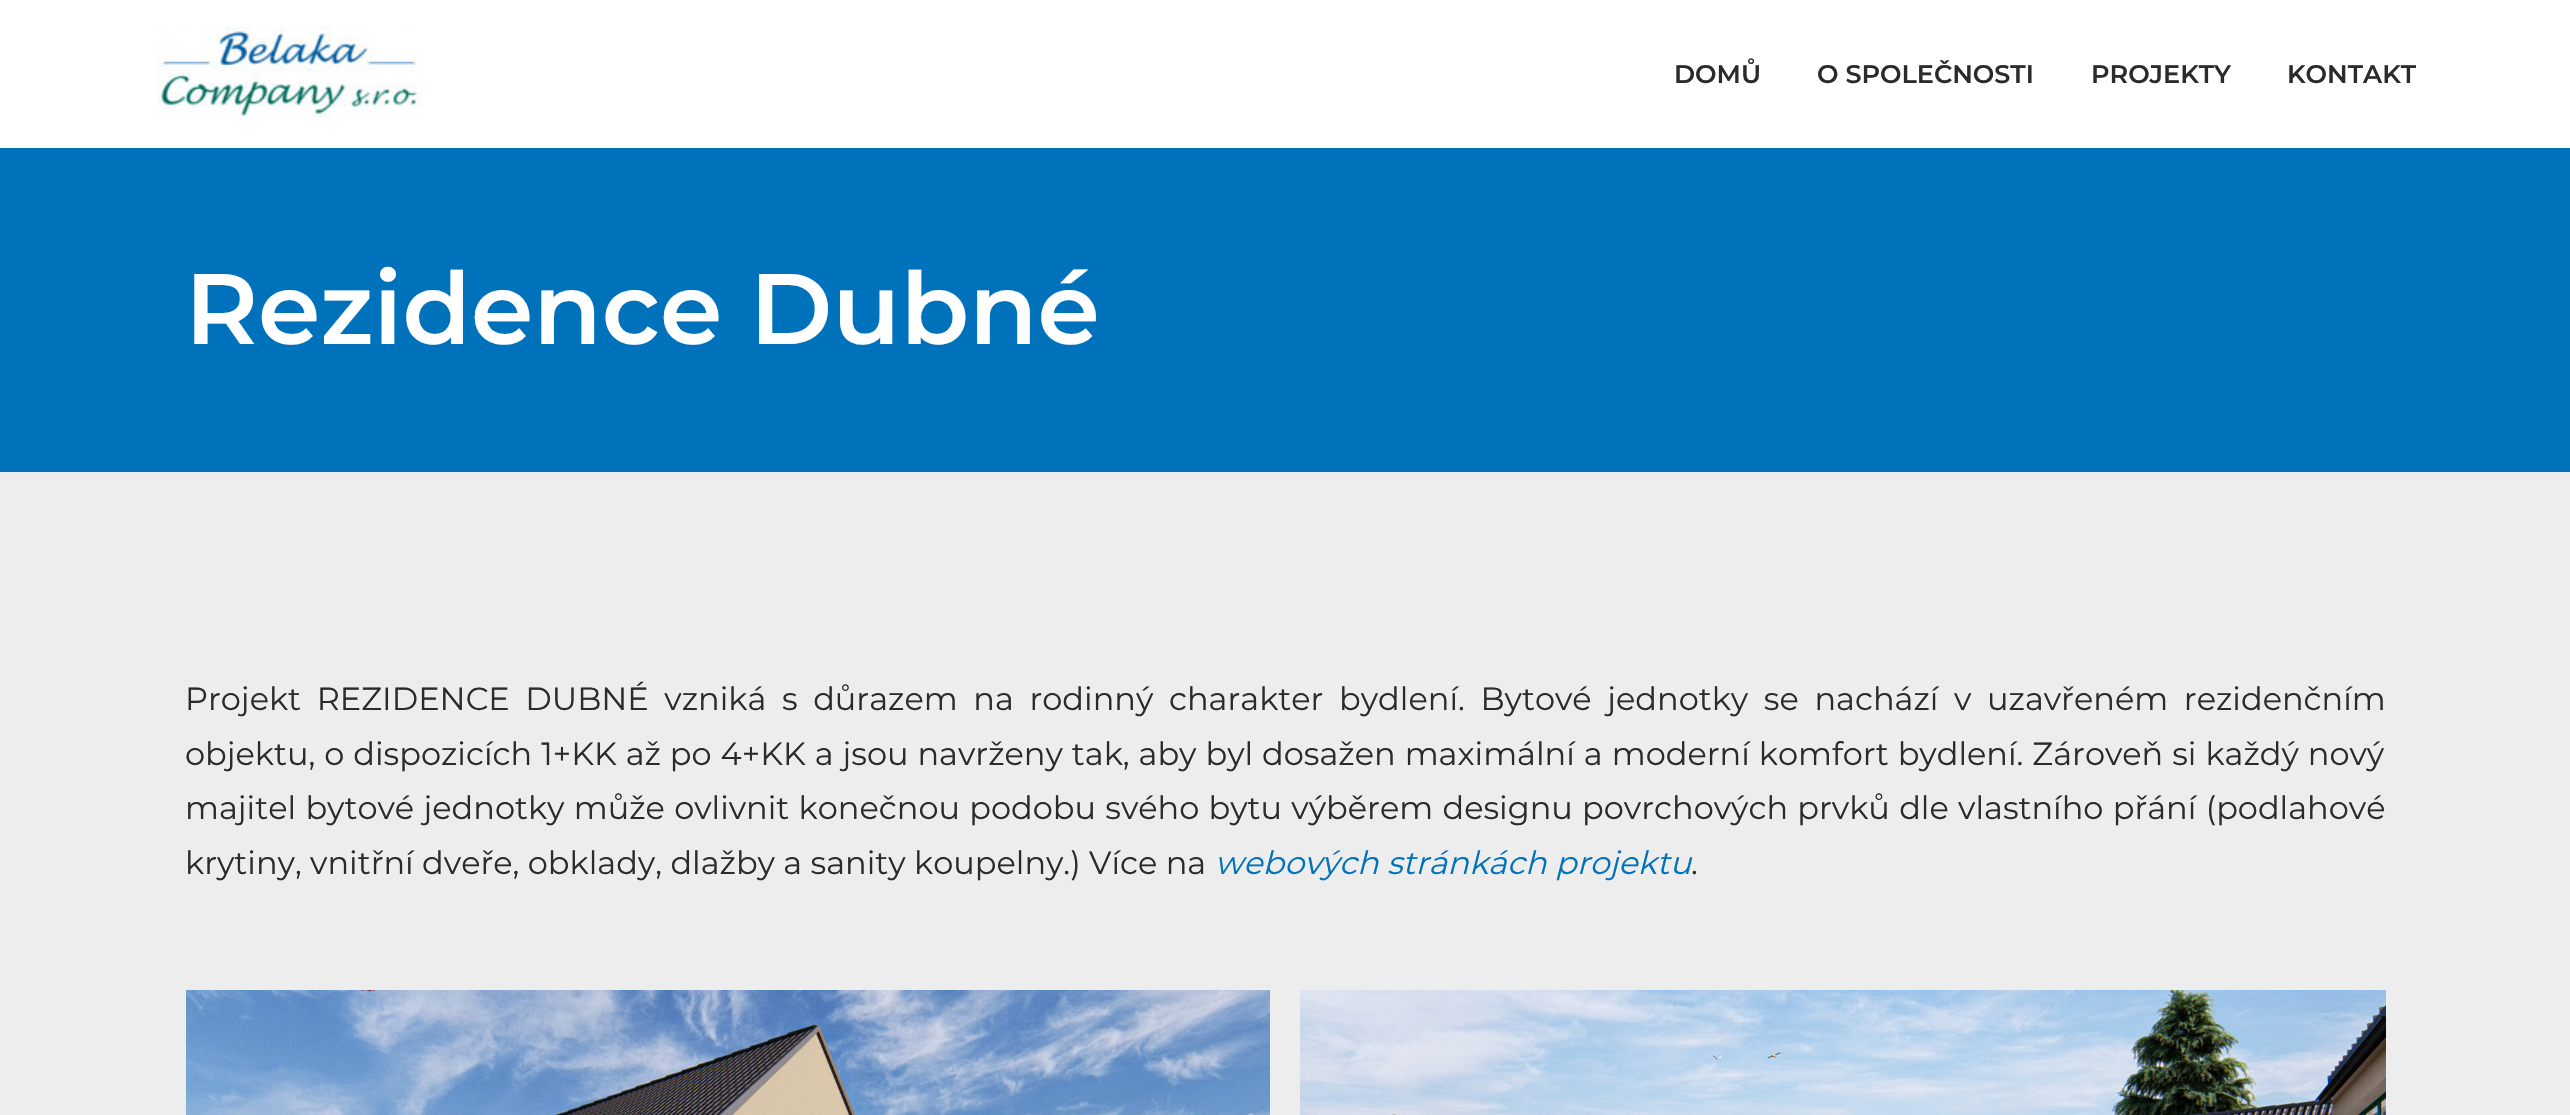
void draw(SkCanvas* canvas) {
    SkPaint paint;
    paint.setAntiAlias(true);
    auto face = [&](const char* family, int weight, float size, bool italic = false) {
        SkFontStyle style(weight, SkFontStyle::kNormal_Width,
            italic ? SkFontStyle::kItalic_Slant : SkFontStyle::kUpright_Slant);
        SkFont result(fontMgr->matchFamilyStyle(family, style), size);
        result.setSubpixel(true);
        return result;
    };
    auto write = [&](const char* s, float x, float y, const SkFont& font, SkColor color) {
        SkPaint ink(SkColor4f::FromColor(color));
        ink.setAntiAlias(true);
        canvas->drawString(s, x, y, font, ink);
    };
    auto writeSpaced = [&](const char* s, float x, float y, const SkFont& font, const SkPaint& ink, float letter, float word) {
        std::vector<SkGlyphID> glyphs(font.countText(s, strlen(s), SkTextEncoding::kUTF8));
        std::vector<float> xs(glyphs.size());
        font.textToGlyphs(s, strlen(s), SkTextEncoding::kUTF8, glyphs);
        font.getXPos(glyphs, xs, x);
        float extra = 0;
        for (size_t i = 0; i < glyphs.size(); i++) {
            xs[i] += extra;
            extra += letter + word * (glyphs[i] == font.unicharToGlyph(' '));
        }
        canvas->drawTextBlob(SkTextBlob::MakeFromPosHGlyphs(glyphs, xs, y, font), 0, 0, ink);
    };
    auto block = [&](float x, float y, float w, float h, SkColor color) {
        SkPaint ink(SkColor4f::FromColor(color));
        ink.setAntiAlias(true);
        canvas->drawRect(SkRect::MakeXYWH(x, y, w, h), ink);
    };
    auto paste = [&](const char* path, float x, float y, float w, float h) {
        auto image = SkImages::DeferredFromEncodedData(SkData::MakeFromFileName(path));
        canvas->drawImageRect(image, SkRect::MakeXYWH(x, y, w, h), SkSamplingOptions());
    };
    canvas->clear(SK_ColorWHITE);
    paste("pic1.png", 157, 26, 266, 92);
    auto kFont1 = face("Montserrat", 600, 25.5f);
    write("DOMŮ", 1674, 83, kFont1, SkColorSetRGB(43, 43, 43));
    write("O SPOLEČNOSTI", 1817, 83, kFont1, SkColorSetRGB(43, 43, 43));
    write("PROJEKTY", 2091, 83, kFont1, SkColorSetRGB(43, 43, 43));
    write("KONTAKT", 2287, 83, kFont1, SkColorSetRGB(43, 43, 43));
    block(0, 148, 2570, 324, SkColorSetRGB(0, 114, 188));
    auto kFont2 = face("Montserrat", 600, 100);
    write("Rezidence Dubné", 185, 344, kFont2, SK_ColorWHITE);
    block(0, 472, 2570, 643, SkColorSetRGB(237, 237, 237));
    auto kFont3 = face("Montserrat", 400, 32);
    paint.setColor(SkColorSetRGB(43, 43, 43));
    writeSpaced("Projekt REZIDENCE DUBNÉ vzniká s důrazem na rodinný charakter bydlení. Bytové jednotky se nachází v uzavřeném rezidenčním", 185, 710, kFont3, paint, 0, 7.25f);
    writeSpaced("objektu, o dispozicích 1+KK až po 4+KK a jsou navrženy tak, aby byl dosažen maximální a moderní komfort bydlení. Zároveň si každý nový", 185, 765, kFont3, paint, 0, 0.6f);
    writeSpaced("majitel bytové jednotky může ovlivnit konečnou podobu svého bytu výběrem designu povrchových prvků dle vlastního přání (podlahové", 185, 819, kFont3, paint, 0, 0.9f);
    write("krytiny, vnitřní dveře, obklady, dlažby a sanity koupelny.) Více na", 185, 874, kFont3, SkColorSetRGB(43, 43, 43));
    auto kFont4 = face("Montserrat", 400, 32, true);
    write("webových stránkách projektu", 1215, 874, kFont4, SkColorSetRGB(0, 114, 188));
    write(".", 1691, 874, kFont3, SkColorSetRGB(43, 43, 43));
    paste("pic2.png", 186, 990, 1084, 125);
    paste("pic3.png", 1300, 990, 1086, 125);
}
